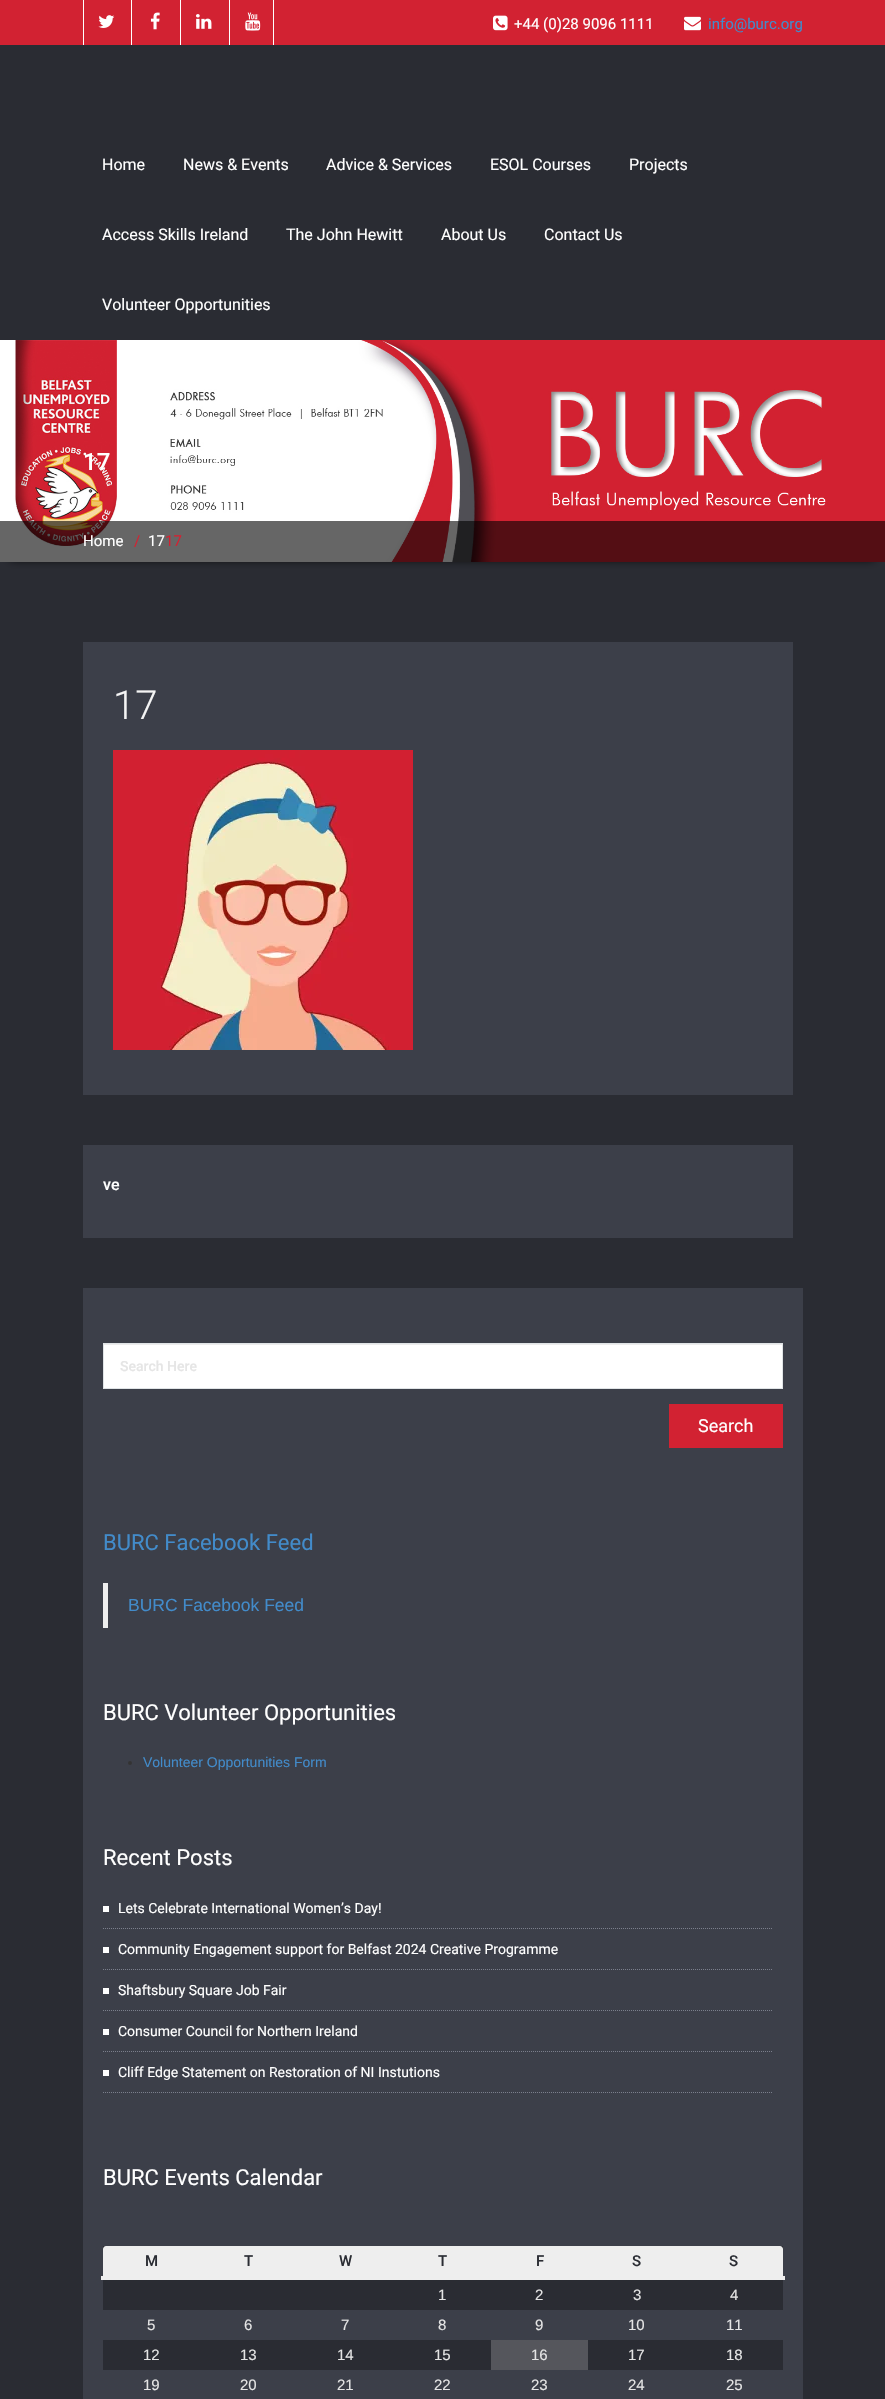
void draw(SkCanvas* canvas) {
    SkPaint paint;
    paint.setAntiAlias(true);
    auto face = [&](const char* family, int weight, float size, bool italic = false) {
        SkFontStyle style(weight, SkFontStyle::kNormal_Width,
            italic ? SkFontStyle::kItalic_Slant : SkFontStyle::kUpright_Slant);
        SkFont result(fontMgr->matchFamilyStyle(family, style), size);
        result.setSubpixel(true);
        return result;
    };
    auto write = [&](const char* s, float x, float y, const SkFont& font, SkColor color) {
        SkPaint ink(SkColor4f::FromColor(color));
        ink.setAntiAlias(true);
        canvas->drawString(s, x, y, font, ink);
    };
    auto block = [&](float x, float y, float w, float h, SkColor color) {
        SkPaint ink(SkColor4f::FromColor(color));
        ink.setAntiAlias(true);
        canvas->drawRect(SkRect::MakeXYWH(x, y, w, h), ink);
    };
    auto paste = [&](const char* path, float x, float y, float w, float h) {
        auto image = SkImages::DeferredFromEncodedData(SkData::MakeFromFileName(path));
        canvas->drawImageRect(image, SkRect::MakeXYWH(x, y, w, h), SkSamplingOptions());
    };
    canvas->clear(SkColorSetRGB(42, 44, 51));
    block(0, 0, 885, 45, SkColorSetRGB(210, 34, 50));
    block(83, 0, 1, 45, SK_ColorWHITE);
    paste("pic1.png", 98, 15, 17, 13);
    block(131, 0, 1, 45, SK_ColorWHITE);
    paste("pic2.png", 150, 12, 10, 18);
    block(180, 0, 1, 45, SK_ColorWHITE);
    paste("pic3.png", 196, 14, 16, 15);
    block(273, 0, 1, 45, SK_ColorWHITE);
    block(229, 0, 1, 45, SK_ColorWHITE);
    paste("pic4.png", 245, 12, 16, 19);
    paste("pic5.png", 493, 15, 15, 16);
    auto kFont1 = face("Roboto", 400, 15);
    write("+44 (0)28 9096 1111", 514, 29, kFont1, SK_ColorWHITE);
    paste("pic6.png", 684, 16, 17, 15);
    write("info@burc.org", 708, 29, kFont1, SkColorSetRGB(66, 139, 202));
    auto kFont2 = face("Roboto", 400, 16);
    write("Home", 102, 170, kFont2, SK_ColorWHITE);
    write("News & Events", 183, 170, kFont2, SK_ColorWHITE);
    write("Advice & Services", 326, 170, kFont2, SK_ColorWHITE);
    write("ESOL Courses", 490, 170, kFont2, SK_ColorWHITE);
    write("Projects", 629, 170, kFont2, SK_ColorWHITE);
    write("Access Skills Ireland", 102, 240, kFont2, SK_ColorWHITE);
    write("The John Hewitt", 286, 240, kFont2, SK_ColorWHITE);
    write("About Us", 441, 240, kFont2, SK_ColorWHITE);
    write("Contact Us", 544, 240, kFont2, SK_ColorWHITE);
    write("Volunteer Opportunities", 102, 310, kFont2, SK_ColorWHITE);
    paint.setColor(SK_ColorBLACK);
    paint.setMaskFilter(SkMaskFilter::MakeBlur(kNormal_SkBlurStyle, 5));
    canvas->drawRect(SkRect::MakeXYWH(10, 357, 865, 202), paint);
    paint.setMaskFilter(nullptr);
    paste("pic7.png", 0, 340, 885, 222);
    auto kFont3 = face("Roboto", 500, 24);
    write("17", 83, 470, kFont3, SK_ColorWHITE);
    block(0, 521, 885, 41, SkColorSetARGB(153, 0, 0, 0));
    write("Home", 83, 546, kFont1, SK_ColorWHITE);
    write("/", 134, 546, kFont1, SkColorSetRGB(210, 34, 50));
    write("17", 148, 546, kFont1, SK_ColorWHITE);
    write("17", 165, 546, kFont1, SkColorSetRGB(210, 34, 50));
    block(83, 642, 710, 453, SkColorSetRGB(60, 63, 73));
    auto kFont4 = face("Roboto", 300, 40);
    write("17", 113, 719, kFont4, SkColorSetRGB(245, 245, 245));
    paste("pic8.png", 113, 750, 300, 300);
    block(83, 1145, 710, 93, SkColorSetRGB(60, 63, 73));
    auto kFont5 = face("Roboto", 500, 16);
    write("ve", 103, 1190, kFont5, SK_ColorWHITE);
    block(83, 1288, 720, 1111, SkColorSetRGB(60, 63, 73));
    block(104, 1345, 678, 43, SK_ColorWHITE);
    block(104, 1344, 678, 1, SkColorSetRGB(236, 236, 236));
    paint.setStyle(SkPaint::kStroke_Style);
    paint.setStrokeWidth(1);
    paint.setColor(SkColorSetRGB(224, 228, 230));
    canvas->drawRect(SkRect::MakeXYWH(103.5f, 1343.5f, 679, 45), paint);
    auto kFont6 = face("Roboto", 500, 14);
    write("Search Here", 120, 1371, kFont6, SkColorSetRGB(229, 229, 229));
    block(669, 1404, 114, 44, SkColorSetRGB(210, 34, 50));
    auto kFont7 = face("Roboto", 400, 18);
    write("Search", 698, 1432, kFont7, SK_ColorWHITE);
    auto kFont8 = face("Roboto", 400, 22);
    write("BURC Facebook Feed", 103, 1550, kFont8, SkColorSetRGB(66, 139, 202));
    block(103, 1583, 5, 45, SkColorSetRGB(238, 238, 238));
    auto kFont9 = face("Liberation Sans", 400, 17.5f);
    write("BURC Facebook Feed", 128, 1611, kFont9, SkColorSetRGB(66, 139, 202));
    write("BURC Volunteer Opportunities", 103, 1720, kFont8, SK_ColorWHITE);
    paint.setStyle(SkPaint::kFill_Style);
    paint.setColor(SkColorSetRGB(51, 51, 51));
    canvas->drawCircle(130, 1763, 2, paint);
    auto kFont10 = face("Liberation Sans", 400, 14);
    write("Volunteer Opportunities Form", 143, 1767, kFont10, SkColorSetRGB(66, 139, 202));
    write("Recent Posts", 103, 1865, kFont8, SK_ColorWHITE);
    paint.setStyle(SkPaint::kStroke_Style);
    paint.setColor(SkColorSetRGB(123, 127, 140));
    paint.setPathEffect(SkDashPathEffect::Make({{1, 1}}, 0));
    canvas->drawPath(SkPathBuilder().moveTo(103, 1928.5f).lineTo(773, 1928.5f).detach(), paint);
    paint.setPathEffect(nullptr);
    auto kFont11 = face("Roboto", 400, 14);
    write("Lets Celebrate International Women’s Day!", 118, 1913, kFont11, SK_ColorWHITE);
    block(103, 1906, 6, 6, SK_ColorWHITE);
    paint.setPathEffect(SkDashPathEffect::Make({{1, 1}}, 0));
    canvas->drawPath(SkPathBuilder().moveTo(103, 1969.5f).lineTo(773, 1969.5f).detach(), paint);
    paint.setPathEffect(nullptr);
    write("Community Engagement support for Belfast 2024 Creative Programme", 118, 1954, kFont11, SK_ColorWHITE);
    block(103, 1947, 6, 6, SK_ColorWHITE);
    paint.setPathEffect(SkDashPathEffect::Make({{1, 1}}, 0));
    canvas->drawPath(SkPathBuilder().moveTo(103, 2010.5f).lineTo(773, 2010.5f).detach(), paint);
    paint.setPathEffect(nullptr);
    write("Shaftsbury Square Job Fair", 118, 1995, kFont11, SK_ColorWHITE);
    block(103, 1988, 6, 6, SK_ColorWHITE);
    paint.setPathEffect(SkDashPathEffect::Make({{1, 1}}, 0));
    canvas->drawPath(SkPathBuilder().moveTo(103, 2051.5f).lineTo(773, 2051.5f).detach(), paint);
    paint.setPathEffect(nullptr);
    write("Consumer Council for Northern Ireland", 118, 2036, kFont11, SK_ColorWHITE);
    block(103, 2029, 6, 6, SK_ColorWHITE);
    paint.setPathEffect(SkDashPathEffect::Make({{1, 1}}, 0));
    canvas->drawPath(SkPathBuilder().moveTo(103, 2092.5f).lineTo(773, 2092.5f).detach(), paint);
    paint.setPathEffect(nullptr);
    write("Cliff Edge Statement on Restoration of NI Instutions", 118, 2077, kFont11, SK_ColorWHITE);
    block(103, 2070, 6, 6, SK_ColorWHITE);
    write("BURC Events Calendar", 103, 2185, kFont8, SK_ColorWHITE);
    block(103, 2246, 680, 3, SkColorSetRGB(42, 44, 51));
    paint.setStyle(SkPaint::kFill_Style);
    paint.setColor(SkColorSetRGB(238, 238, 238));
    canvas->drawPath(SkPathBuilder().moveTo(106, 2246).lineTo(200, 2246).lineTo(200, 2278).lineTo(103, 2278).lineTo(103, 2249).cubicTo(103, 2247.5f, 104.5f, 2246, 106, 2246).close().detach(), paint);
    auto kFont12 = face("Roboto", 500, 15);
    write("M", 145, 2266, kFont12, SkColorSetRGB(42, 44, 51));
    block(200, 2246, 485, 30, SkColorSetRGB(238, 238, 238));
    write("T", 244, 2266, kFont12, SkColorSetRGB(42, 44, 51));
    write("W", 339, 2266, kFont12, SkColorSetRGB(42, 44, 51));
    write("T", 438, 2266, kFont12, SkColorSetRGB(42, 44, 51));
    write("F", 536, 2266, kFont12, SkColorSetRGB(42, 44, 51));
    write("S", 632, 2266, kFont12, SkColorSetRGB(42, 44, 51));
    canvas->drawPath(SkPathBuilder().moveTo(685, 2246).lineTo(780, 2246).cubicTo(781.5f, 2246, 783, 2247.5f, 783, 2249).lineTo(783, 2278).lineTo(685, 2278).close().detach(), paint);
    block(101, 2276, 684, 4, SkColorSetRGB(238, 238, 238));
    write("S", 729, 2266, kFont12, SkColorSetRGB(42, 44, 51));
    block(103, 2280, 680, 30, SkColorSetRGB(42, 44, 51));
    auto kFont13 = face("Liberation Sans", 400, 15);
    write("1", 438, 2300, kFont13, SkColorSetRGB(229, 229, 229));
    write("2", 535, 2300, kFont13, SkColorSetRGB(229, 229, 229));
    write("3", 633, 2300, kFont13, SkColorSetRGB(229, 229, 229));
    write("4", 730, 2300, kFont13, SkColorSetRGB(229, 229, 229));
    write("5", 147, 2330, kFont13, SkColorSetRGB(229, 229, 229));
    write("6", 244, 2330, kFont13, SkColorSetRGB(229, 229, 229));
    write("7", 341, 2330, kFont13, SkColorSetRGB(229, 229, 229));
    write("8", 438, 2330, kFont13, SkColorSetRGB(229, 229, 229));
    write("9", 535, 2330, kFont13, SkColorSetRGB(229, 229, 229));
    write("10", 628, 2330, kFont13, SkColorSetRGB(229, 229, 229));
    write("11", 726, 2330, kFont13, SkColorSetRGB(229, 229, 229));
    block(103, 2340, 680, 30, SkColorSetRGB(42, 44, 51));
    write("12", 143, 2360, kFont13, SkColorSetRGB(229, 229, 229));
    write("13", 240, 2360, kFont13, SkColorSetRGB(229, 229, 229));
    write("14", 337, 2360, kFont13, SkColorSetRGB(229, 229, 229));
    write("15", 434, 2360, kFont13, SkColorSetRGB(229, 229, 229));
    block(491, 2340, 97, 30, SkColorSetRGB(85, 86, 92));
    write("16", 531, 2360, kFont13, SkColorSetRGB(229, 229, 229));
    write("17", 628, 2360, kFont13, SkColorSetRGB(229, 229, 229));
    write("18", 726, 2360, kFont13, SkColorSetRGB(229, 229, 229));
    write("19", 143, 2390, kFont13, SkColorSetRGB(229, 229, 229));
    write("20", 240, 2390, kFont13, SkColorSetRGB(229, 229, 229));
    write("21", 337, 2390, kFont13, SkColorSetRGB(229, 229, 229));
    write("22", 434, 2390, kFont13, SkColorSetRGB(229, 229, 229));
    write("23", 531, 2390, kFont13, SkColorSetRGB(229, 229, 229));
    write("24", 628, 2390, kFont13, SkColorSetRGB(229, 229, 229));
    write("25", 726, 2390, kFont13, SkColorSetRGB(229, 229, 229));
}
